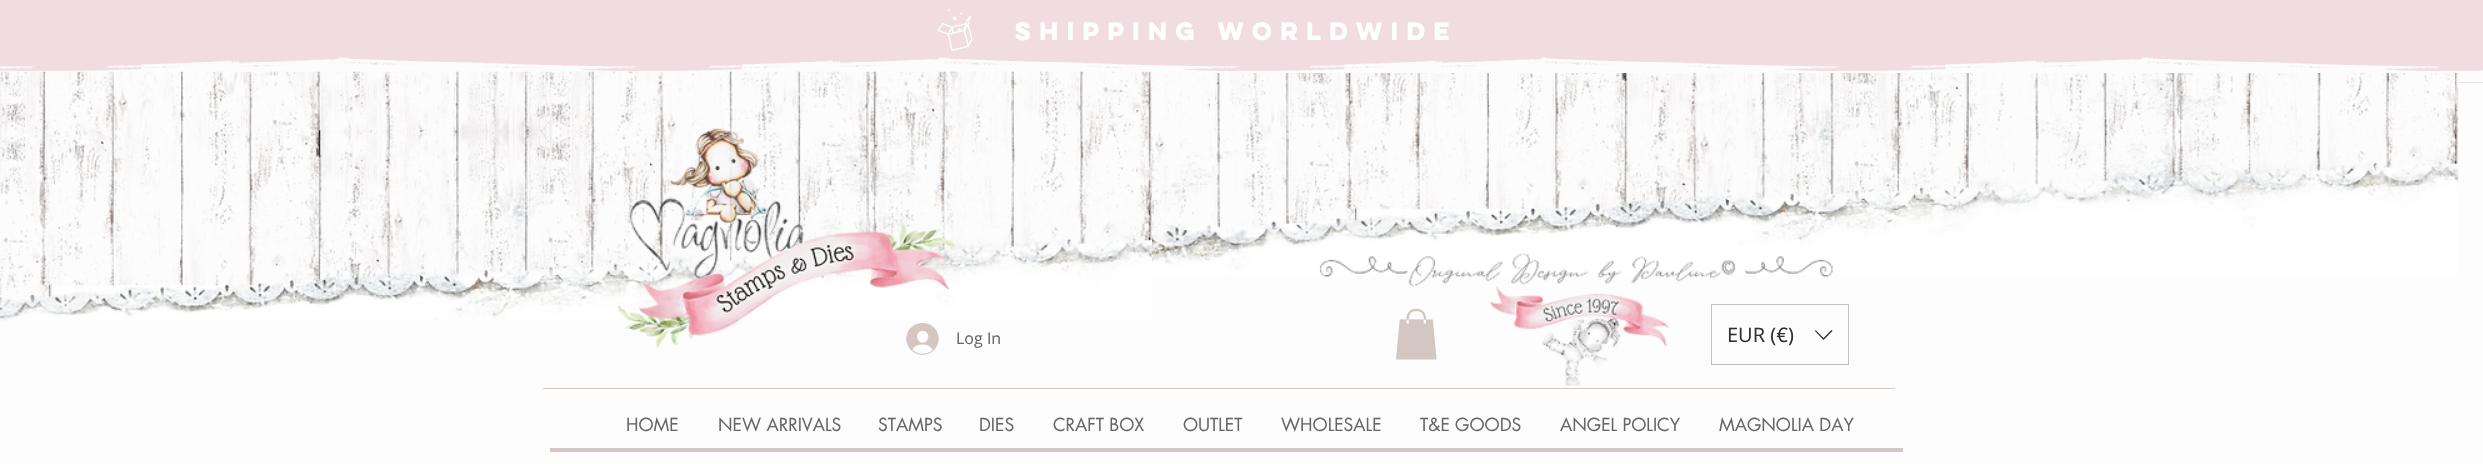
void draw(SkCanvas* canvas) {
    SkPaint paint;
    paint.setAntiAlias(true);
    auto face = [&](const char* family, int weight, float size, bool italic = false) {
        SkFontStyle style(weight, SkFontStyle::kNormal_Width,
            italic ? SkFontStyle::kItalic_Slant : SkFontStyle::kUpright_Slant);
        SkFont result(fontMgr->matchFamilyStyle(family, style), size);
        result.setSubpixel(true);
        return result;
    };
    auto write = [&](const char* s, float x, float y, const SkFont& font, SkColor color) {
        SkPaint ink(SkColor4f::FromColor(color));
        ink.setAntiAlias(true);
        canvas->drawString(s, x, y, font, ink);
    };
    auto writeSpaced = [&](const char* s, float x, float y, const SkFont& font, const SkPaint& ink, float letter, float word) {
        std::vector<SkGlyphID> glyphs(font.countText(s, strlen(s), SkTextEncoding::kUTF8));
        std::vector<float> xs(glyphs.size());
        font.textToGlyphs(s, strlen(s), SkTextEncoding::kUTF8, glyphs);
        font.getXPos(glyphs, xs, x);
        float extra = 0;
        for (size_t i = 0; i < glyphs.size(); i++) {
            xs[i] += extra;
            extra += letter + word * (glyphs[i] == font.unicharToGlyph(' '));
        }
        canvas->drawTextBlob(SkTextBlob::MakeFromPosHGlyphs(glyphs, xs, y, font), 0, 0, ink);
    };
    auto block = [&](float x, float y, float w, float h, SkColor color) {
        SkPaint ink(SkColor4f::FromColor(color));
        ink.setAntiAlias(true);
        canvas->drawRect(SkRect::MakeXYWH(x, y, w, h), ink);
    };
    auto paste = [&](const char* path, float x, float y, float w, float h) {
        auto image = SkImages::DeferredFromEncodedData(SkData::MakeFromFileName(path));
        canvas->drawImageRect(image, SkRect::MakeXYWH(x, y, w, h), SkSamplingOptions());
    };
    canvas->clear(SkColorSetRGB(253, 253, 253));
    block(0, 0, 2483, 83, SkColorSetRGB(240, 220, 225));
    paste("pic1.png", 937, 9, 36, 42);
    auto kFont1 = face("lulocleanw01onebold", 700, 22.5f);
    paint.setColor(SkColorSetRGB(255, 255, 254));
    writeSpaced("SHIPPING WORLDWIDE", 1015, 40, kFont1, paint, 3.4f, 0);
    paste("pic2.png", 0, 57, 2483, 25);
    paste("pic4.png", 1152, 73, 1307, 202);
    paste("pic3.png", 0, 71, 1153, 250);
    paste("pic5.png", 617, 127, 339, 221);
    paste("pic6.png", 1319, 252, 514, 134);
    paste("pic7.png", 906, 323, 33, 32);
    auto kFont2 = face("Open Sans", 400, 16);
    write("Log In", 956, 344, kFont2, SkColorSetRGB(103, 102, 102));
    paste("pic8.png", 1396, 308, 41, 52);
    paint.setStyle(SkPaint::kStroke_Style);
    paint.setStrokeWidth(1);
    paint.setColor(SkColorSetRGB(189, 191, 192));
    canvas->drawRect(SkRect::MakeXYWH(1711.5f, 304.5f, 137, 60), paint);
    auto kFont3 = face("Open Sans", 400, 20);
    write("EUR (€)", 1727, 342, kFont3, SkColorSetRGB(49, 48, 48));
    paint.setStyle(SkPaint::kFill_Style);
    paint.setColor(SkColorSetRGB(49, 48, 48));
    canvas->drawPath(SkPathBuilder(SkPathFillType::kEvenOdd).moveTo(1831.5f, 330).lineTo(1832.5f, 331).lineTo(1823.5f, 340).lineTo(1815, 331).lineTo(1815.5f, 330).lineTo(1823.5f, 338).close().detach(), paint);
    block(543, 388, 1352, 1, SkColorSetRGB(212, 199, 193));
    auto kFont4 = face("futura", 400, 17.5f);
    write("HOME", 626, 431, kFont4, SkColorSetRGB(103, 102, 102));
    write("NEW ARRIVALS", 718, 431, kFont4, SkColorSetRGB(103, 102, 102));
    write("STAMPS", 878, 431, kFont4, SkColorSetRGB(103, 102, 102));
    write("DIES", 979, 431, kFont4, SkColorSetRGB(103, 102, 102));
    write("CRAFT BOX", 1053, 431, kFont4, SkColorSetRGB(103, 102, 102));
    write("OUTLET", 1183, 431, kFont4, SkColorSetRGB(103, 102, 102));
    write("WHOLESALE", 1281, 431, kFont4, SkColorSetRGB(103, 102, 102));
    write("T&E GOODS", 1420, 431, kFont4, SkColorSetRGB(103, 102, 102));
    write("ANGEL POLICY", 1560, 431, kFont4, SkColorSetRGB(103, 102, 102));
    write("MAGNOLIA DAY", 1719, 431, kFont4, SkColorSetRGB(103, 102, 102));
    block(550, 448, 1353, 4, SkColorSetRGB(212, 199, 193));
}
